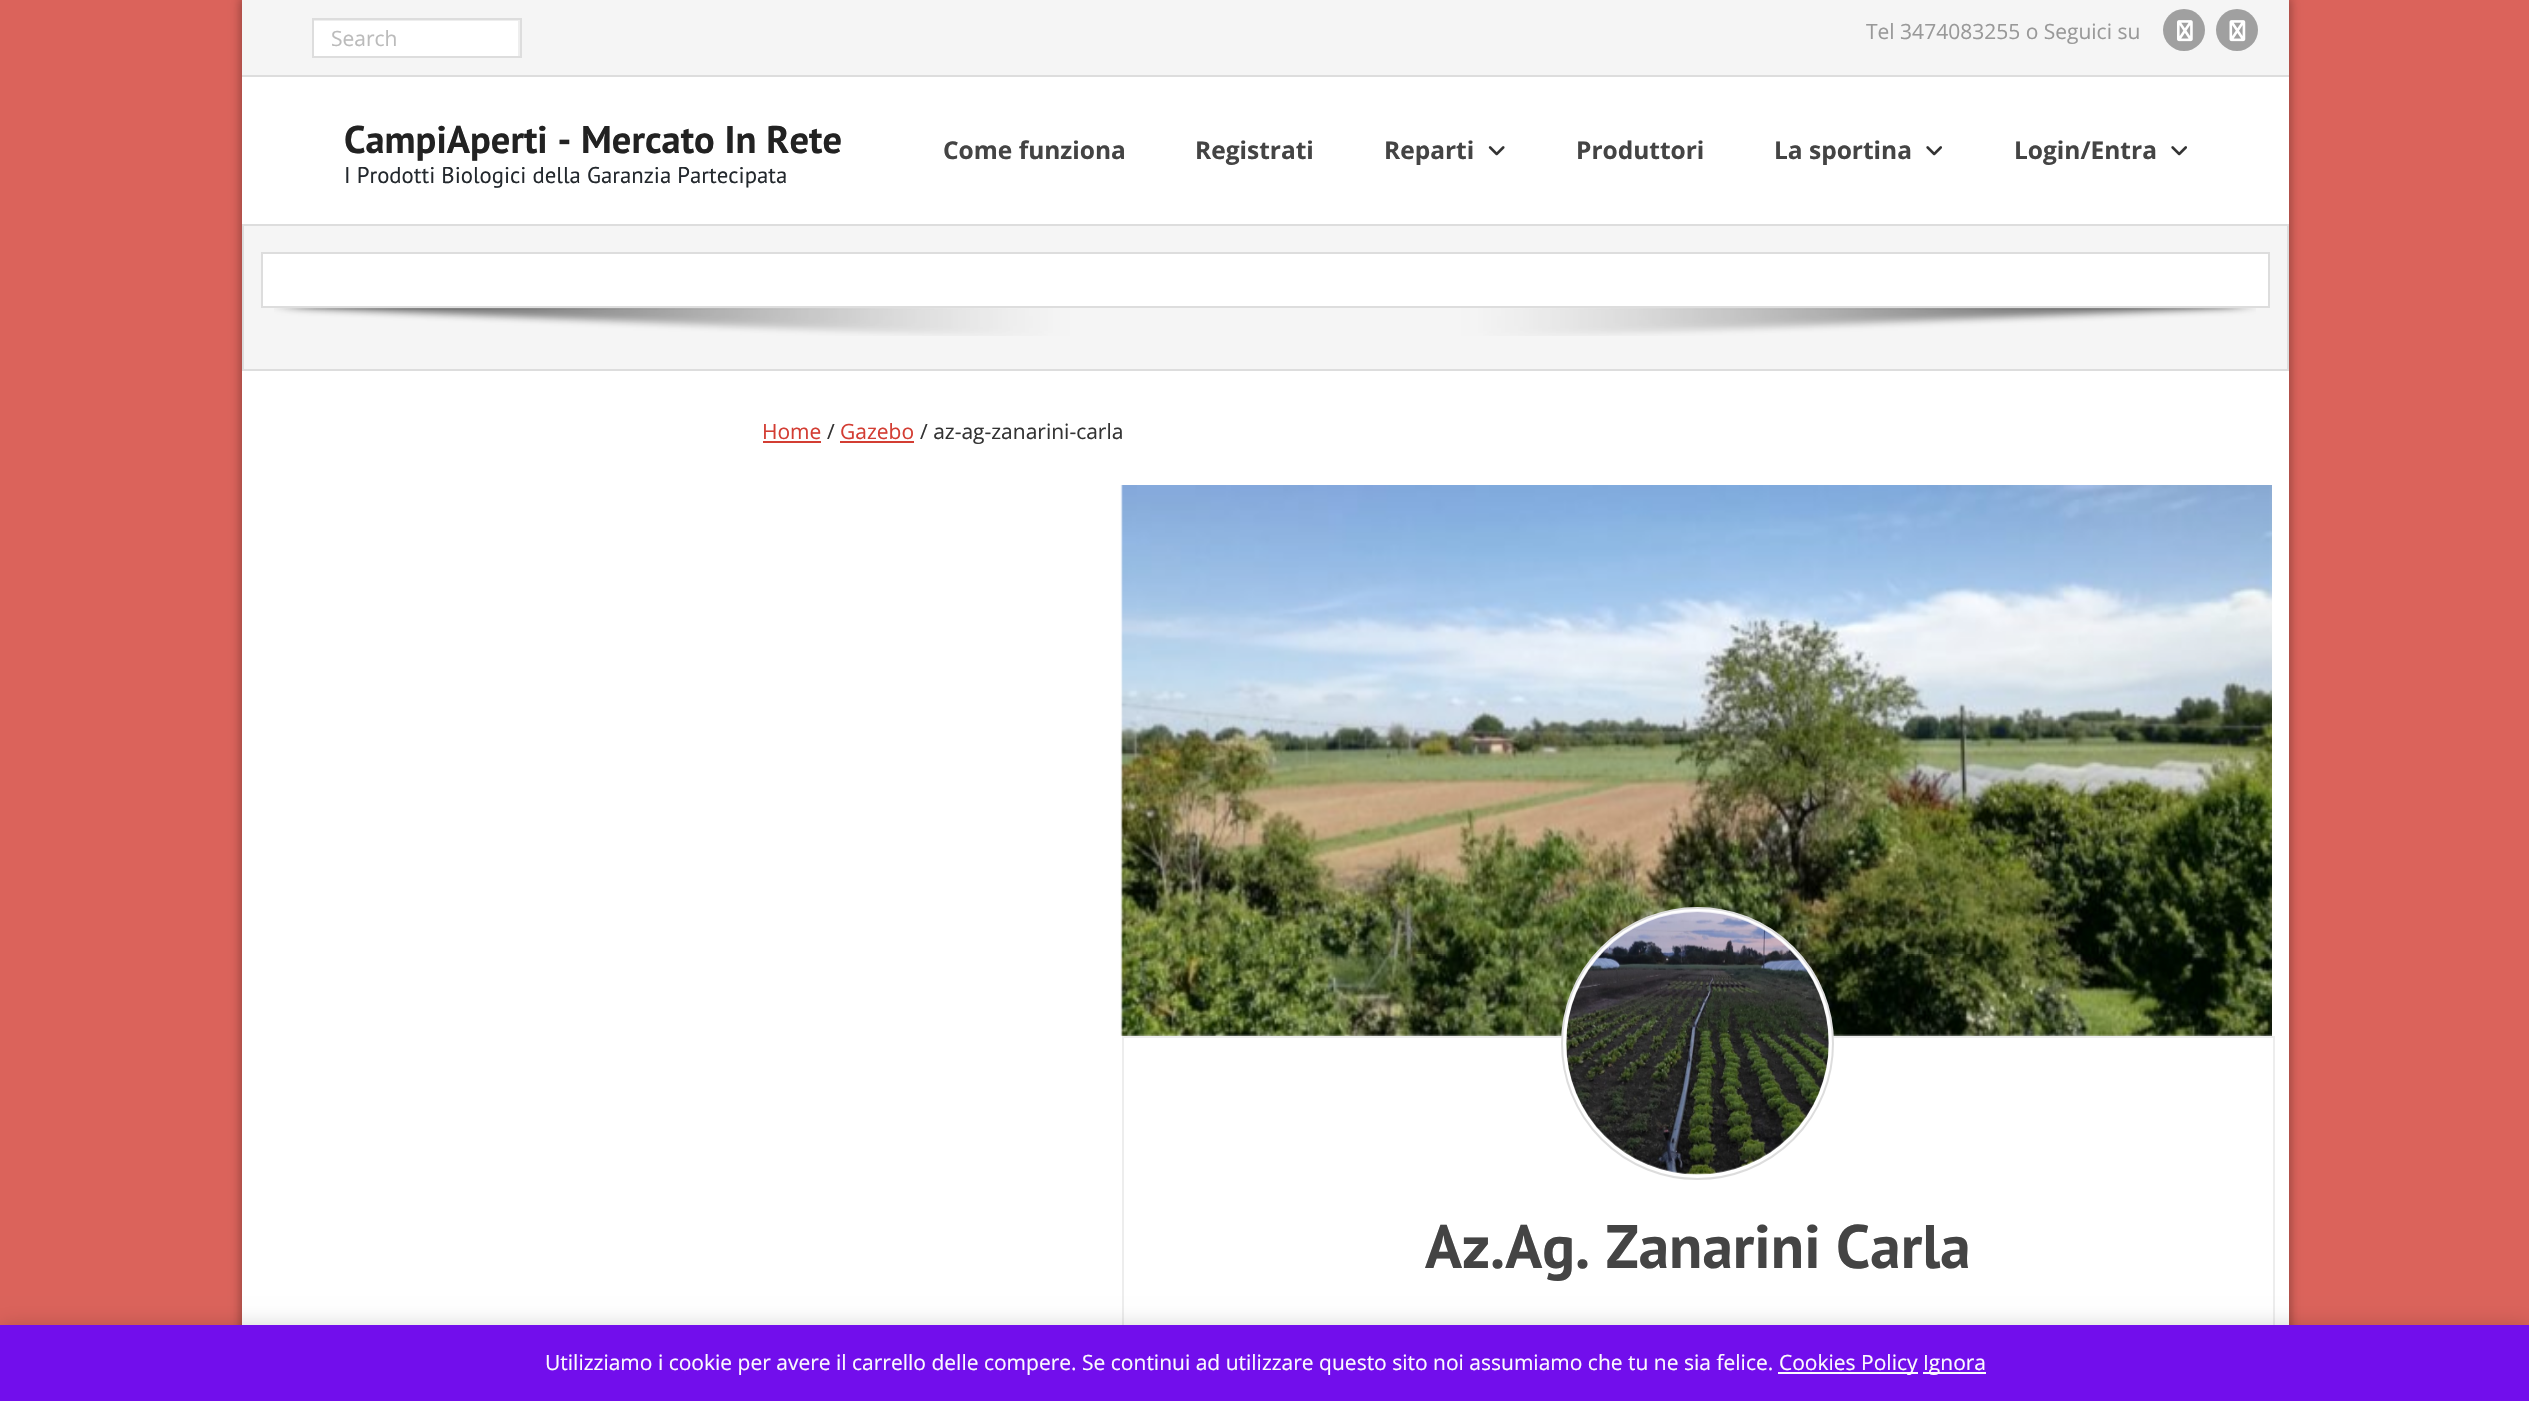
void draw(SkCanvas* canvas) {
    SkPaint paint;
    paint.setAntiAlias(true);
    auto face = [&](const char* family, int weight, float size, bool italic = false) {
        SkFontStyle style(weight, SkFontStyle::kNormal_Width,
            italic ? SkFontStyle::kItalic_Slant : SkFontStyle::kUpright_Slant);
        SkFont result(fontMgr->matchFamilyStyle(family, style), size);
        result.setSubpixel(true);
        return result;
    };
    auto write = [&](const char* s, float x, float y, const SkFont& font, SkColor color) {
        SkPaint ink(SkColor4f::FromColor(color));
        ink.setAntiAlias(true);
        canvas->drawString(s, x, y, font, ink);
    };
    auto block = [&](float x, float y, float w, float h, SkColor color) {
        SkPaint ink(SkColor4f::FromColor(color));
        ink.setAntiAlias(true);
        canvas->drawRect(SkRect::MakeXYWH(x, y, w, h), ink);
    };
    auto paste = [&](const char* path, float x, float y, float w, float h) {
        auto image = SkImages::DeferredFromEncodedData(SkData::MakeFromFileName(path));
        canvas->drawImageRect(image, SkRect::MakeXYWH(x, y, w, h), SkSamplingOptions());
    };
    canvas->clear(SkColorSetRGB(219, 99, 91));
    paint.setColor(SkColorSetARGB(77, 0, 0, 0));
    paint.setMaskFilter(SkMaskFilter::MakeBlur(kNormal_SkBlurStyle, 4.5f));
    canvas->drawRect(SkRect::MakeXYWH(240, -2, 2051, 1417), paint);
    paint.setMaskFilter(nullptr);
    block(242, 77, 2047, 1248, SK_ColorWHITE);
    block(242, 224, 2047, 2, SkColorSetRGB(221, 221, 221));
    block(242, 0, 2047, 75, SkColorSetRGB(245, 245, 245));
    block(242, 75, 2047, 2, SkColorSetRGB(221, 221, 221));
    block(314, 21, 204, 35, SK_ColorWHITE);
    canvas->save();
    canvas->clipRect(SkRect::MakeXYWH(313, 19, 207, 37));
    paint.setColor(SkColorSetRGB(238, 238, 238));
    canvas->drawPath(SkPathBuilder(SkPathFillType::kEvenOdd).moveTo(140, -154).lineTo(693, -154).lineTo(693, 229).lineTo(140, 229).close().moveTo(312, 21).lineTo(518, 21).lineTo(518, 58).lineTo(312, 58).close().detach(), paint);
    canvas->restore();
    paint.setStyle(SkPaint::kStroke_Style);
    paint.setStrokeWidth(2);
    paint.setColor(SkColorSetRGB(221, 221, 221));
    canvas->drawRect(SkRect::MakeXYWH(313, 19, 208, 38), paint);
    auto kFont1 = face("Open Sans", 400, 21);
    write("Search", 331, 46, kFont1, SkColorSetRGB(187, 187, 187));
    write("Tel 3474083255 o Seguici su", 1866, 39, kFont1, SkColorSetRGB(153, 153, 153));
    paint.setStyle(SkPaint::kFill_Style);
    paint.setColor(SkColorSetRGB(160, 160, 160));
    canvas->drawCircle(2184, 30, 21, paint);
    paste("pic1.png", 2177, 20, 16, 22);
    canvas->drawCircle(2237, 30, 21, paint);
    paste("pic2.png", 2229, 20, 17, 22);
    auto kFont2 = face("PT Sans", 700, 38.5f);
    write("CampiAperti - Mercato In Rete", 344, 153, kFont2, SkColorSetRGB(34, 34, 34));
    auto kFont3 = face("PT Sans", 400, 22.75f);
    write("I Prodotti Biologici della Garanzia Partecipata", 344, 183, kFont3, SkColorSetRGB(35, 40, 45));
    auto kFont4 = face("Open Sans", 700, 24.5f);
    write("Come funziona", 943, 159, kFont4, SkColorSetRGB(68, 68, 68));
    write("Registrati", 1195, 159, kFont4, SkColorSetRGB(68, 68, 68));
    write("Reparti", 1384, 159, kFont4, SkColorSetRGB(68, 68, 68));
    paste("pic3.png", 1488, 146, 17, 10);
    write("Produttori", 1576, 159, kFont4, SkColorSetRGB(68, 68, 68));
    write("La sportina", 1774, 159, kFont4, SkColorSetRGB(68, 68, 68));
    paste("pic4.png", 1926, 146, 16, 10);
    write("Login/Entra", 2014, 159, kFont4, SkColorSetRGB(68, 68, 68));
    paste("pic4.png", 2171, 146, 16, 10);
    block(244, 226, 2043, 143, SkColorSetRGB(245, 245, 245));
    block(2287, 226, 2, 145, SkColorSetRGB(221, 221, 221));
    block(242, 369, 2047, 2, SkColorSetRGB(221, 221, 221));
    block(242, 226, 2, 145, SkColorSetRGB(221, 221, 221));
    paint.setColor(SK_ColorWHITE);
    canvas->drawRect(SkRect::MakeXYWH(262, 253, 2007, 54), paint);
    paint.setStyle(SkPaint::kStroke_Style);
    paint.setColor(SkColorSetRGB(221, 221, 221));
    canvas->drawRect(SkRect::MakeXYWH(262, 253, 2007, 54), paint);
    paste("pic5.png", 274, 308, 1982, 28);
    write("Home", 762, 439, kFont1, SkColorSetRGB(211, 61, 51));
    block(763, 441, 58, 2, SkColorSetRGB(211, 61, 51));
    write("/", 827, 439, kFont1, SkColorSetRGB(51, 51, 51));
    write("Gazebo", 840, 439, kFont1, SkColorSetRGB(211, 61, 51));
    block(840, 441, 74, 2, SkColorSetRGB(211, 61, 51));
    write("/ az-ag-zanarini-carla", 920, 439, kFont1, SkColorSetRGB(51, 51, 51));
    block(1122, 485, 1150, 551, SkColorSetRGB(238, 238, 238));
    paste("pic6.png", 1120, 485, 1152, 551);
    paint.setColor(SkColorSetRGB(237, 237, 237));
    canvas->drawRect(SkRect::MakeXYWH(1123, 1037, 1151, 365), paint);
    paint.setStyle(SkPaint::kFill_Style);
    paint.setColor(SK_ColorWHITE);
    canvas->drawCircle(1697.5f, 1043.5f, 135.5f, paint);
    paint.setStyle(SkPaint::kStroke_Style);
    paint.setColor(SkColorSetRGB(221, 221, 221));
    canvas->drawCircle(1697.5f, 1043.5f, 135.5f, paint);
    paste("pic7.png", 1566, 911, 263, 264);
    auto kFont5 = face("PT Sans", 700, 61.25f);
    write("Az.Ag. Zanarini Carla", 1425, 1268, kFont5, SkColorSetRGB(68, 68, 68));
    paint.setStyle(SkPaint::kFill_Style);
    paint.setColor(SkColorSetARGB(51, 0, 0, 0));
    paint.setMaskFilter(SkMaskFilter::MakeBlur(kNormal_SkBlurStyle, 10.5f));
    canvas->drawRect(SkRect::MakeXYWH(0, 1327, 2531, 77), paint);
    paint.setMaskFilter(nullptr);
    block(0, 1325, 2529, 76, SkColorSetRGB(114, 14, 236));
    write("Utilizziamo i cookie per avere il carrello delle compere. Se continui ad utilizzare questo sito noi assumiamo che tu ne sia felice.", 545, 1370, kFont1, SkColorSetRGB(252, 251, 254));
    block(1778, 1372, 140, 2, SkColorSetRGB(252, 251, 254));
    write("Cookies Policy", 1779, 1370, kFont1, SkColorSetRGB(252, 251, 254));
    block(1923, 1372, 63, 2, SkColorSetRGB(252, 251, 254));
    write("Ignora", 1923, 1370, kFont1, SkColorSetRGB(252, 251, 254));
}
